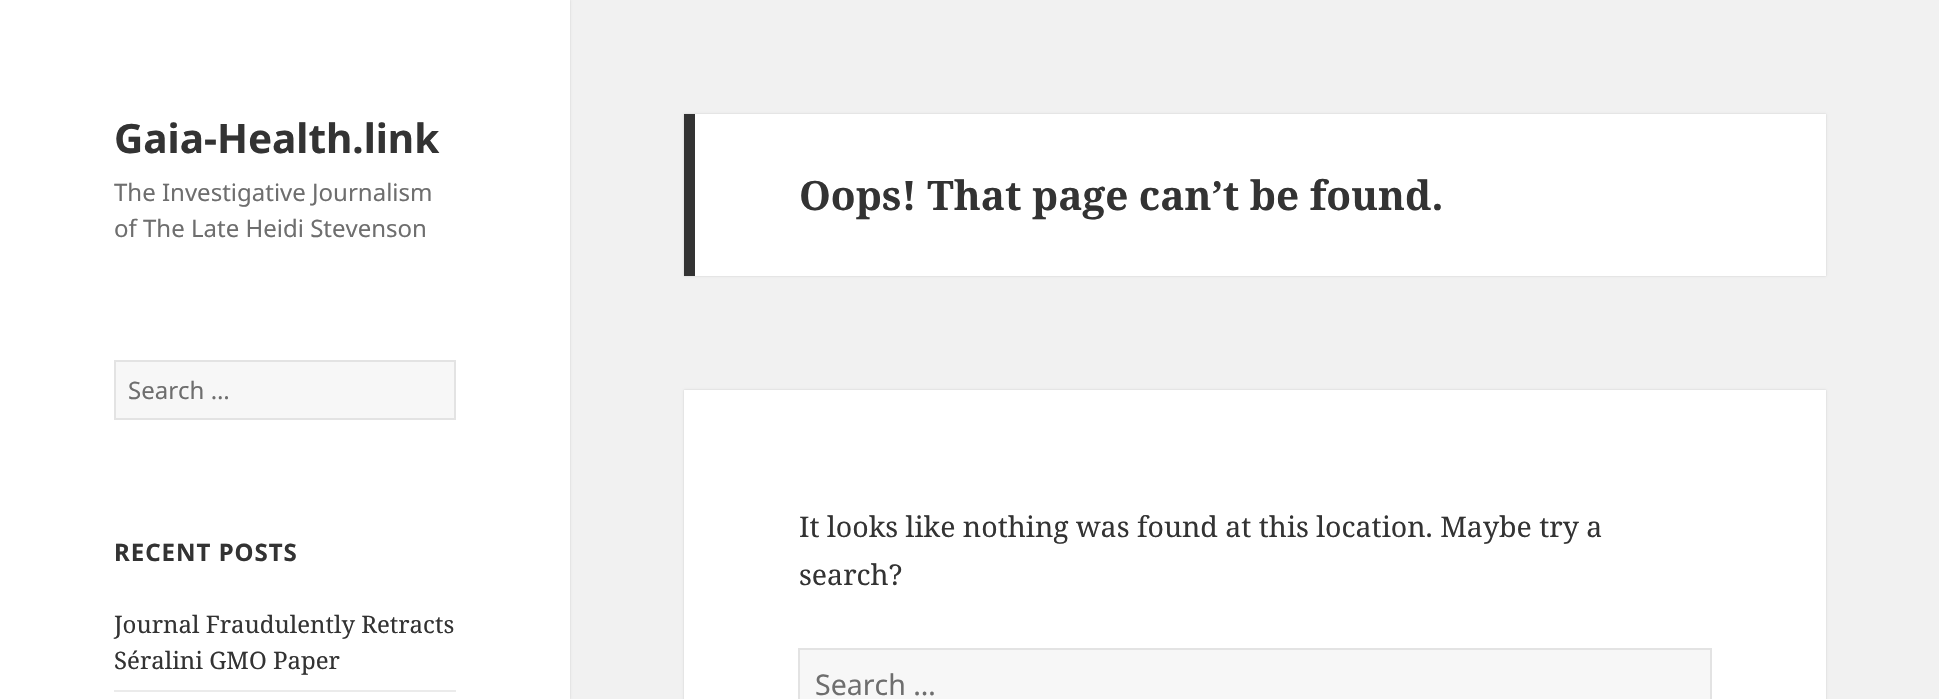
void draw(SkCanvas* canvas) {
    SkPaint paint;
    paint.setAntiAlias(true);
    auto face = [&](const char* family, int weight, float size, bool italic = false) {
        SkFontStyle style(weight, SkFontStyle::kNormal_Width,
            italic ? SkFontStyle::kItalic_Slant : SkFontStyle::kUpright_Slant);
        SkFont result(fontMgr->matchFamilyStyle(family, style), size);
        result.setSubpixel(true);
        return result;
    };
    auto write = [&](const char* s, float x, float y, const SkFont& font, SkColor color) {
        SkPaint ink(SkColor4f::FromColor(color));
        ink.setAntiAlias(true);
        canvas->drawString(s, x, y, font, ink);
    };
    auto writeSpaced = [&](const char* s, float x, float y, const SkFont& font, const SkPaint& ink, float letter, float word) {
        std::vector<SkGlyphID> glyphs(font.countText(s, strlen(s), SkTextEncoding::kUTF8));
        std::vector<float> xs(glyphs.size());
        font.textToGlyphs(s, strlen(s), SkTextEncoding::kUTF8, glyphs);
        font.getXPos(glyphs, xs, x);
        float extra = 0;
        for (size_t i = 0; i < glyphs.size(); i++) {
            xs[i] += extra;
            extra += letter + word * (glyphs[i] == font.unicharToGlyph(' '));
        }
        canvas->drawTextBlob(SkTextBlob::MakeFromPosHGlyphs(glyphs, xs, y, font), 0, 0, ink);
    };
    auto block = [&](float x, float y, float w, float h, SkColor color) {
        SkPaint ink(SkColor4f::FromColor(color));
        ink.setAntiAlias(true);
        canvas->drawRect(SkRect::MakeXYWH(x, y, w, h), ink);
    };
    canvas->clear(SkColorSetRGB(241, 241, 241));
    paint.setColor(SkColorSetARGB(38, 0, 0, 0));
    paint.setMaskFilter(SkMaskFilter::MakeBlur(kNormal_SkBlurStyle, 1));
    canvas->drawRect(SkRect::MakeXYWH(0, 0, 570, 699), paint);
    paint.setMaskFilter(nullptr);
    block(0, 0, 570, 699, SK_ColorWHITE);
    auto kFont1 = face("Noto Sans", 700, 40.5f);
    write("Gaia-Health.link", 114, 153, kFont1, SkColorSetRGB(51, 51, 51));
    auto kFont2 = face("Noto Sans", 400, 24);
    write("The Investigative Journalism", 114, 201, kFont2, SkColorSetRGB(110, 110, 110));
    write("of The Late Heidi Stevenson", 114, 237, kFont2, SkColorSetRGB(110, 110, 110));
    paint.setColor(SkColorSetRGB(247, 247, 247));
    canvas->drawRect(SkRect::MakeXYWH(115, 361, 340, 58), paint);
    paint.setStyle(SkPaint::kStroke_Style);
    paint.setStrokeWidth(2);
    paint.setColor(SkColorSetRGB(227, 227, 227));
    canvas->drawRect(SkRect::MakeXYWH(115, 361, 340, 58), paint);
    write("Search …", 128, 399, kFont2, SkColorSetRGB(110, 110, 110));
    auto kFont3 = face("Noto Sans", 700, 24);
    paint.setStyle(SkPaint::kFill_Style);
    paint.setColor(SkColorSetRGB(51, 51, 51));
    writeSpaced("RECENT POSTS", 114, 561, kFont3, paint, 1, 0);
    auto kFont4 = face("Noto Serif", 400, 24);
    write("Journal Fraudulently Retracts", 114, 633, kFont4, SkColorSetRGB(51, 51, 51));
    write("Séralini GMO Paper", 114, 669, kFont4, SkColorSetRGB(51, 51, 51));
    block(114, 690, 342, 2, SkColorSetRGB(235, 235, 235));
    paint.setColor(SkColorSetARGB(38, 0, 0, 0));
    paint.setMaskFilter(SkMaskFilter::MakeBlur(kNormal_SkBlurStyle, 1));
    canvas->drawRect(SkRect::MakeXYWH(684, 114, 1142, 162), paint);
    paint.setMaskFilter(nullptr);
    block(695, 114, 1131, 162, SK_ColorWHITE);
    block(684, 114, 11, 162, SkColorSetRGB(51, 51, 51));
    auto kFont5 = face("Noto Serif", 700, 40.5f);
    write("Oops! That page can’t be found.", 799, 210, kFont5, SkColorSetRGB(51, 51, 51));
    paint.setMaskFilter(SkMaskFilter::MakeBlur(kNormal_SkBlurStyle, 1));
    canvas->drawRect(SkRect::MakeXYWH(684, 390, 1142, 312), paint);
    paint.setMaskFilter(nullptr);
    block(684, 390, 1142, 309, SK_ColorWHITE);
    auto kFont6 = face("Noto Serif", 400, 28.5f);
    write("It looks like nothing was found at this location. Maybe try a", 799, 537, kFont6, SkColorSetRGB(51, 51, 51));
    write("search?", 799, 585, kFont6, SkColorSetRGB(51, 51, 51));
    paint.setColor(SkColorSetRGB(247, 247, 247));
    canvas->drawRect(SkRect::MakeXYWH(799, 649, 912, 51), paint);
    paint.setStyle(SkPaint::kStroke_Style);
    paint.setColor(SkColorSetRGB(227, 227, 227));
    canvas->drawRect(SkRect::MakeXYWH(799, 649, 912, 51), paint);
    auto kFont7 = face("Noto Sans", 400, 28.5f);
    write("Search …", 815, 695, kFont7, SkColorSetRGB(110, 110, 110));
}
